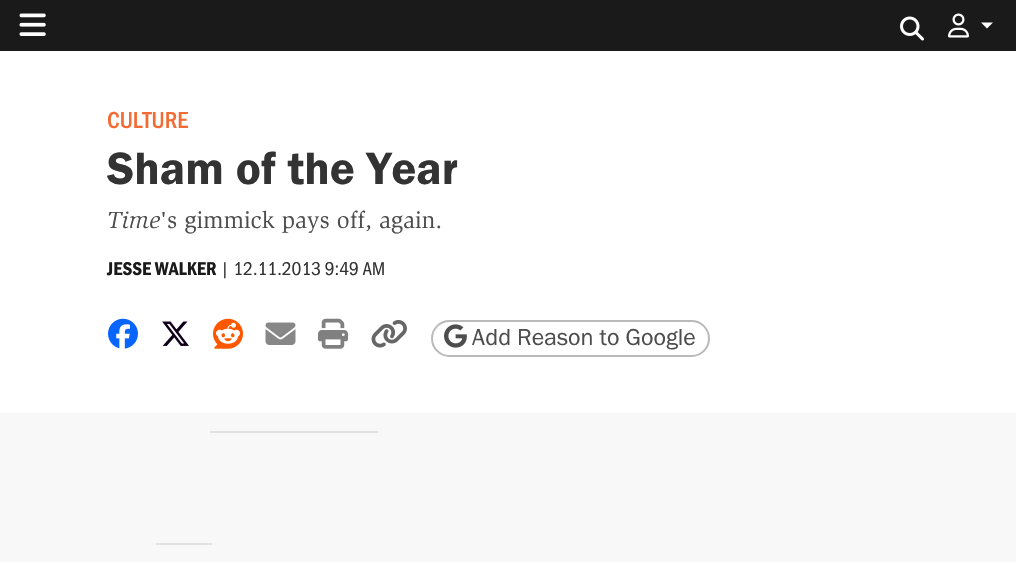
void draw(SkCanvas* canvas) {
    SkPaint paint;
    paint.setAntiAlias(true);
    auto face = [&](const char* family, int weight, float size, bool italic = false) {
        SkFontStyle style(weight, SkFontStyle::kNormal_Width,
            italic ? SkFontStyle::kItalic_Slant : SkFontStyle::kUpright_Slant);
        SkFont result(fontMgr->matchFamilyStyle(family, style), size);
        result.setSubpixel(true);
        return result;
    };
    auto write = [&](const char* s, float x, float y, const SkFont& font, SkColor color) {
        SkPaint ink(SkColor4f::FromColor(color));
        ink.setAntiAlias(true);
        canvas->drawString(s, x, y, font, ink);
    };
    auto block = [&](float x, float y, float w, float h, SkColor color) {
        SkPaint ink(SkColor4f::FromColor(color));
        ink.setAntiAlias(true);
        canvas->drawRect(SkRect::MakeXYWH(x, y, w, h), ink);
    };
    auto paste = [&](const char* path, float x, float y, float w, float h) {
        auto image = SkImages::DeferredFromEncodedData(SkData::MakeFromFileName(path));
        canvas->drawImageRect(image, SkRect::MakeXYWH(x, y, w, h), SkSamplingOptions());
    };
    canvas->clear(SK_ColorWHITE);
    block(0, 0, 1016, 51, SkColorSetRGB(26, 26, 26));
    paste("pic1.png", 19, 13, 27, 23);
    paste("pic2.png", 900, 16, 24, 25);
    paste("pic3.png", 948, 13, 21, 25);
    paint.setColor(SK_ColorWHITE);
    canvas->drawPath(SkPathBuilder().moveTo(981, 22.5f).lineTo(993, 22.5f).lineTo(987, 28.5f).close().detach(), paint);
    auto kFont1 = face("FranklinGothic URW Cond", 500, 24);
    write("CULTURE", 107, 128, kFont1, SkColorSetRGB(243, 107, 52));
    auto kFont2 = face("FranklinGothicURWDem", 400, 47);
    write("Sham of the Year", 107, 184, kFont2, SkColorSetRGB(51, 51, 51));
    auto kFont3 = face("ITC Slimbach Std", 400, 24, true);
    write("Time", 107, 228, kFont3, SkColorSetRGB(77, 77, 77));
    auto kFont4 = face("ITC Slimbach Std", 400, 24);
    write("'s gimmick pays off, again.", 160, 228, kFont4, SkColorSetRGB(77, 77, 77));
    auto kFont5 = face("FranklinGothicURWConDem", 400, 19.25f);
    write("JESSE WALKER", 107, 275, kFont5, SkColorSetRGB(26, 26, 26));
    auto kFont6 = face("FranklinGothic URW Cond", 400, 19.25f);
    write("| 12.11.2013 9:49 AM", 220, 275, kFont6, SkColorSetRGB(51, 51, 51));
    paste("pic4.png", 108, 318, 30, 31);
    paste("pic5.png", 162, 321, 27, 25);
    paste("pic6.png", 213, 318, 30, 31);
    paste("pic7.png", 265, 322, 31, 23);
    paste("pic8.png", 318, 318, 30, 31);
    paste("pic9.png", 371, 320, 36, 28);
    paint.setStyle(SkPaint::kStroke_Style);
    paint.setStrokeWidth(2);
    paint.setColor(SkColorSetRGB(186, 186, 186));
    canvas->drawRoundRect(SkRect::MakeXYWH(432, 321, 277, 35), 17.5f, 17.5f, paint);
    paste("pic10.png", 444, 324, 23, 24);
    auto kFont7 = face("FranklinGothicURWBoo", 400, 24);
    write("Add Reason to Google", 472, 345, kFont7, SkColorSetRGB(77, 77, 77));
    block(210, 431, 168, 2, SkColorSetRGB(26, 26, 26));
    block(156, 543, 56, 2, SkColorSetRGB(26, 26, 26));
    block(0, 413, 1016, 149, SkColorSetARGB(230, 247, 247, 247));
}
